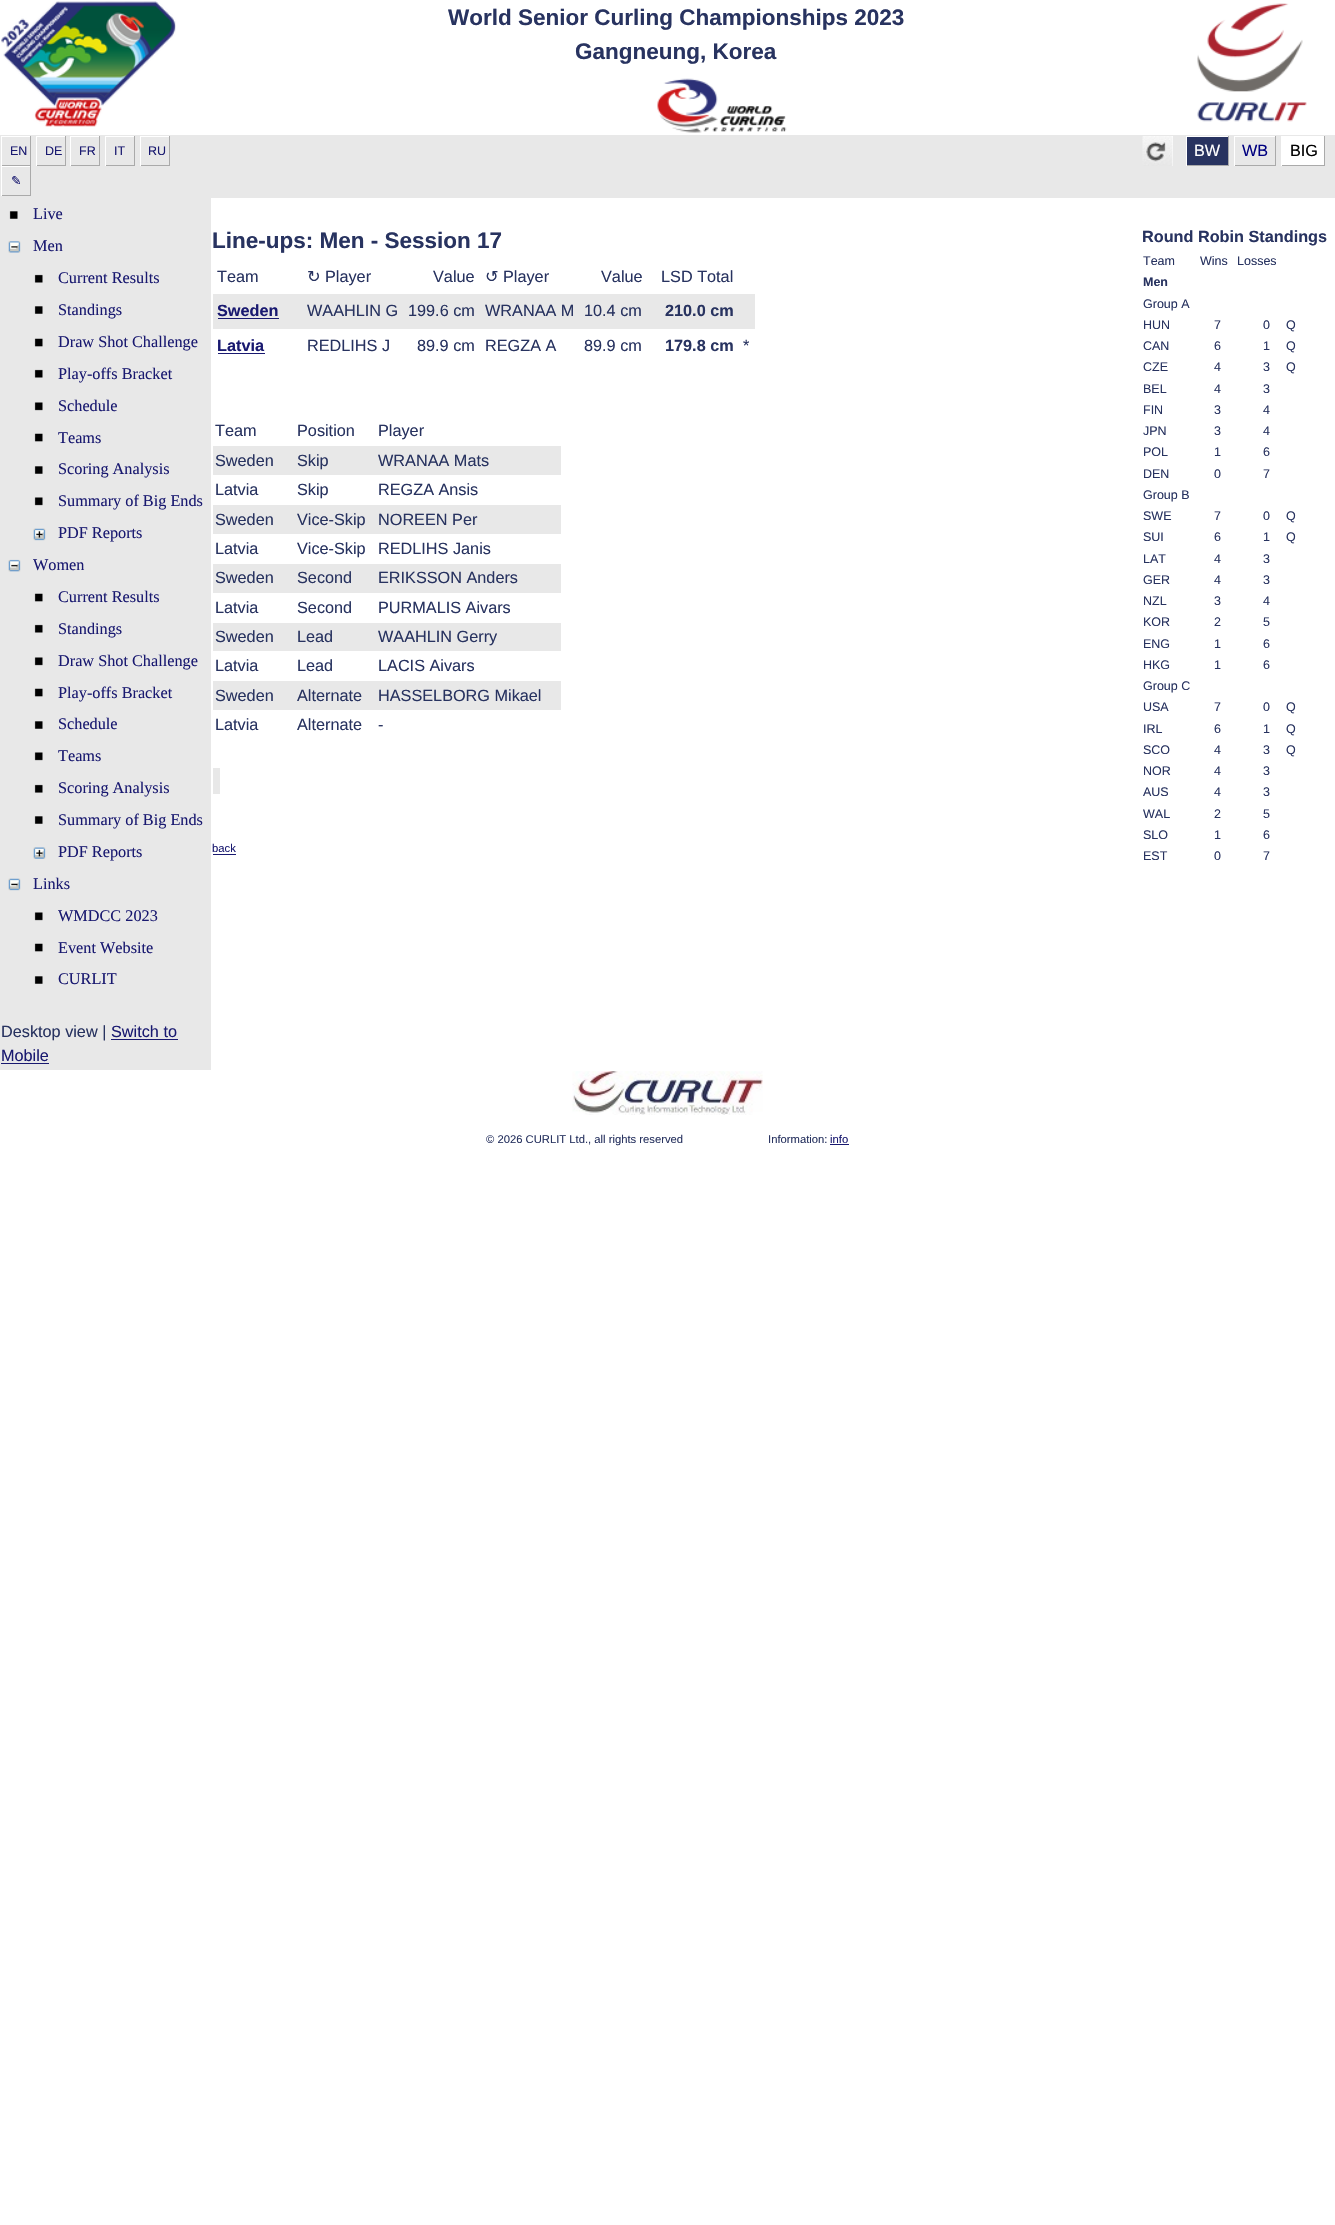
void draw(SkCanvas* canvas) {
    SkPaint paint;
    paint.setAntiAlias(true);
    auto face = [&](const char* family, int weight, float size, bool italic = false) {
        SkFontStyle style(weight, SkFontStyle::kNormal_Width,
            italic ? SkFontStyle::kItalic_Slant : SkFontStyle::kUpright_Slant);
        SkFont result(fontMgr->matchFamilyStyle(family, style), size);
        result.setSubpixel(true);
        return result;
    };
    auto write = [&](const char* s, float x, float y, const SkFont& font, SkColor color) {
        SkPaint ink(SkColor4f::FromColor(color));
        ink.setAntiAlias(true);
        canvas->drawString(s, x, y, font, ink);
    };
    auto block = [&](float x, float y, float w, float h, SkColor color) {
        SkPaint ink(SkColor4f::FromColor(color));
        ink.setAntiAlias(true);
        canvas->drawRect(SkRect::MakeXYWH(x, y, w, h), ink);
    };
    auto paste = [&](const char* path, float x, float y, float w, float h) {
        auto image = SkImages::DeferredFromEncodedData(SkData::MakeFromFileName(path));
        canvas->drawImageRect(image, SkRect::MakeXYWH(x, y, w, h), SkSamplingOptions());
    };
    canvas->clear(SK_ColorWHITE);
    paste("pic1.png", 1, 1, 175, 126);
    auto kFont1 = face("Liberation Sans", 700, 22.5f);
    write("World Senior Curling Championships 2023", 448, 25, kFont1, SkColorSetRGB(40, 51, 96));
    write("Gangneung, Korea", 575, 59, kFont1, SkColorSetRGB(40, 51, 96));
    paste("pic2.png", 1197, 3, 110, 119);
    paste("pic3.png", 657, 78, 130, 55);
    block(0, 135, 1335, 63, SkColorSetRGB(232, 232, 232));
    block(1, 136, 30, 1, SK_ColorWHITE);
    block(30, 136, 1, 30, SkColorSetRGB(170, 170, 170));
    block(1, 165, 30, 1, SkColorSetRGB(170, 170, 170));
    block(1, 136, 1, 30, SK_ColorWHITE);
    auto kFont2 = face("Liberation Sans", 400, 12.5f);
    write("EN", 10, 155, kFont2, SkColorSetRGB(25, 25, 112));
    block(36, 136, 30, 1, SK_ColorWHITE);
    block(65, 136, 1, 30, SkColorSetRGB(170, 170, 170));
    block(36, 165, 30, 1, SkColorSetRGB(170, 170, 170));
    block(36, 136, 1, 30, SK_ColorWHITE);
    write("DE", 45, 155, kFont2, SkColorSetRGB(25, 25, 112));
    block(70, 136, 30, 1, SK_ColorWHITE);
    block(99, 136, 1, 30, SkColorSetRGB(170, 170, 170));
    block(70, 165, 30, 1, SkColorSetRGB(170, 170, 170));
    block(70, 136, 1, 30, SK_ColorWHITE);
    write("FR", 79, 155, kFont2, SkColorSetRGB(25, 25, 112));
    block(105, 136, 30, 1, SK_ColorWHITE);
    block(134, 136, 1, 30, SkColorSetRGB(170, 170, 170));
    block(105, 165, 30, 1, SkColorSetRGB(170, 170, 170));
    block(105, 136, 1, 30, SK_ColorWHITE);
    write("IT", 114, 155, kFont2, SkColorSetRGB(25, 25, 112));
    block(140, 136, 30, 1, SK_ColorWHITE);
    block(169, 136, 1, 30, SkColorSetRGB(170, 170, 170));
    block(140, 165, 30, 1, SkColorSetRGB(170, 170, 170));
    block(140, 136, 1, 30, SK_ColorWHITE);
    write("RU", 148, 155, kFont2, SkColorSetRGB(25, 25, 112));
    block(1, 166, 30, 1, SK_ColorWHITE);
    block(30, 166, 1, 30, SkColorSetRGB(170, 170, 170));
    block(1, 195, 30, 1, SkColorSetRGB(170, 170, 170));
    block(1, 166, 1, 30, SK_ColorWHITE);
    auto kFont3 = face("DejaVu Sans", 400, 12.5f);
    write("✎", 11, 185, kFont3, SkColorSetRGB(25, 25, 112));
    block(1143, 136, 30, 30, SK_ColorWHITE);
    paste("pic4.png", 1142, 136, 31, 30);
    block(1187, 137, 41, 28, SkColorSetRGB(40, 51, 96));
    block(1186, 136, 43, 1, SK_ColorWHITE);
    block(1228, 136, 1, 30, SkColorSetRGB(170, 170, 170));
    block(1186, 165, 43, 1, SkColorSetRGB(170, 170, 170));
    block(1186, 136, 1, 30, SK_ColorWHITE);
    auto kFont4 = face("Liberation Sans", 400, 16.25f);
    write("BW", 1194, 156, kFont4, SK_ColorWHITE);
    block(1234, 136, 42, 1, SK_ColorWHITE);
    block(1275, 136, 1, 30, SkColorSetRGB(170, 170, 170));
    block(1234, 165, 42, 1, SkColorSetRGB(170, 170, 170));
    block(1234, 136, 1, 30, SK_ColorWHITE);
    write("WB", 1242, 156, kFont4, SkColorSetRGB(0, 0, 128));
    block(1282, 136, 42, 29, SK_ColorWHITE);
    block(1324, 136, 1, 30, SkColorSetRGB(170, 170, 170));
    block(1281, 165, 44, 1, SkColorSetRGB(170, 170, 170));
    block(1281, 136, 1, 30, SK_ColorWHITE);
    write("BIG", 1290, 156, kFont4, SK_ColorBLACK);
    block(0, 198, 211, 872, SkColorSetRGB(232, 232, 232));
    paste("pic5.png", 9, 211, 9, 8);
    auto kFont5 = face("Liberation Serif", 400, 16.25f);
    write("Live", 33, 219, kFont5, SkColorSetRGB(25, 25, 112));
    paste("pic6.png", 8, 241, 13, 12);
    write("Men", 33, 251, kFont5, SkColorSetRGB(25, 25, 112));
    paste("pic7.png", 34, 274, 9, 9);
    write("Current Results", 58, 283, kFont5, SkColorSetRGB(25, 25, 112));
    paste("pic5.png", 34, 306, 9, 8);
    write("Standings", 58, 315, kFont5, SkColorSetRGB(25, 25, 112));
    paste("pic8.png", 34, 338, 9, 9);
    write("Draw Shot Challenge", 58, 347, kFont5, SkColorSetRGB(25, 25, 112));
    paste("pic7.png", 34, 369, 9, 9);
    write("Play-offs Bracket", 58, 379, kFont5, SkColorSetRGB(25, 25, 112));
    paste("pic9.png", 34, 402, 9, 9);
    write("Schedule", 58, 411, kFont5, SkColorSetRGB(25, 25, 112));
    paste("pic8.png", 34, 433, 9, 9);
    write("Teams", 58, 443, kFont5, SkColorSetRGB(25, 25, 112));
    paste("pic5.png", 34, 466, 9, 8);
    write("Scoring Analysis", 58, 474, kFont5, SkColorSetRGB(25, 25, 112));
    paste("pic9.png", 34, 497, 9, 9);
    write("Summary of Big Ends", 58, 506, kFont5, SkColorSetRGB(25, 25, 112));
    paste("pic10.png", 33, 528, 13, 13);
    write("PDF Reports", 58, 538, kFont5, SkColorSetRGB(25, 25, 112));
    paste("pic11.png", 8, 559, 13, 13);
    write("Women", 33, 570, kFont5, SkColorSetRGB(25, 25, 112));
    paste("pic8.png", 34, 593, 9, 9);
    write("Current Results", 58, 602, kFont5, SkColorSetRGB(25, 25, 112));
    paste("pic7.png", 34, 624, 9, 9);
    write("Standings", 58, 634, kFont5, SkColorSetRGB(25, 25, 112));
    paste("pic9.png", 34, 657, 9, 9);
    write("Draw Shot Challenge", 58, 666, kFont5, SkColorSetRGB(25, 25, 112));
    paste("pic8.png", 34, 688, 9, 9);
    write("Play-offs Bracket", 58, 698, kFont5, SkColorSetRGB(25, 25, 112));
    paste("pic5.png", 34, 721, 9, 8);
    write("Schedule", 58, 729, kFont5, SkColorSetRGB(25, 25, 112));
    paste("pic9.png", 34, 752, 9, 9);
    write("Teams", 58, 761, kFont5, SkColorSetRGB(25, 25, 112));
    paste("pic12.png", 34, 784, 9, 9);
    write("Scoring Analysis", 58, 793, kFont5, SkColorSetRGB(25, 25, 112));
    paste("pic5.png", 34, 816, 9, 8);
    write("Summary of Big Ends", 58, 825, kFont5, SkColorSetRGB(25, 25, 112));
    paste("pic13.png", 33, 847, 13, 12);
    write("PDF Reports", 58, 857, kFont5, SkColorSetRGB(25, 25, 112));
    paste("pic14.png", 8, 878, 13, 13);
    write("Links", 33, 889, kFont5, SkColorSetRGB(25, 25, 112));
    paste("pic9.png", 34, 912, 9, 9);
    write("WMDCC 2023", 58, 921, kFont5, SkColorSetRGB(25, 25, 112));
    paste("pic8.png", 34, 943, 9, 9);
    write("Event Website", 58, 953, kFont5, SkColorSetRGB(25, 25, 112));
    paste("pic5.png", 34, 976, 9, 8);
    write("CURLIT", 58, 984, kFont5, SkColorSetRGB(25, 25, 112));
    write("Desktop view |", 1, 1037, kFont4, SkColorSetRGB(40, 51, 96));
    write("Switch to", 111, 1037, kFont4, SkColorSetRGB(25, 25, 112));
    block(111, 1039, 67, 1, SkColorSetRGB(25, 25, 112));
    write("Mobile", 1, 1061, kFont4, SkColorSetRGB(25, 25, 112));
    block(1, 1063, 48, 1, SkColorSetRGB(25, 25, 112));
    write("Line-ups: Men - Session 17", 212, 248, kFont1, SkColorSetRGB(40, 51, 96));
    write("Team", 217, 282, kFont4, SkColorSetRGB(40, 51, 96));
    auto kFont6 = face("DejaVu Sans", 400, 16.25f);
    write("↻", 307, 282, kFont6, SkColorSetRGB(40, 51, 96));
    write("Player", 325, 282, kFont4, SkColorSetRGB(40, 51, 96));
    write("Value", 433, 282, kFont4, SkColorSetRGB(40, 51, 96));
    write("↺", 485, 282, kFont6, SkColorSetRGB(40, 51, 96));
    write("Player", 503, 282, kFont4, SkColorSetRGB(40, 51, 96));
    write("Value", 601, 282, kFont4, SkColorSetRGB(40, 51, 96));
    write("LSD Total", 661, 282, kFont4, SkColorSetRGB(40, 51, 96));
    block(213, 294, 542, 35, SkColorSetRGB(232, 232, 232));
    auto kFont7 = face("Liberation Sans", 700, 16.25f);
    write("Sweden", 217, 316, kFont7, SkColorSetRGB(25, 25, 112));
    block(218, 318, 61, 1, SkColorSetRGB(25, 25, 112));
    write("WAAHLIN G", 307, 316, kFont4, SkColorSetRGB(40, 51, 96));
    write("199.6 cm", 408, 316, kFont4, SkColorSetRGB(40, 51, 96));
    write("WRANAA M", 485, 316, kFont4, SkColorSetRGB(40, 51, 96));
    write("10.4 cm", 584, 316, kFont4, SkColorSetRGB(40, 51, 96));
    write("210.0 cm", 665, 316, kFont7, SkColorSetRGB(40, 51, 96));
    write("Latvia", 217, 351, kFont7, SkColorSetRGB(25, 25, 112));
    block(218, 353, 47, 1, SkColorSetRGB(25, 25, 112));
    write("REDLIHS J", 307, 351, kFont4, SkColorSetRGB(40, 51, 96));
    write("89.9 cm", 417, 351, kFont4, SkColorSetRGB(40, 51, 96));
    write("REGZA A", 485, 351, kFont4, SkColorSetRGB(40, 51, 96));
    write("89.9 cm", 584, 351, kFont4, SkColorSetRGB(40, 51, 96));
    write("179.8 cm", 665, 351, kFont7, SkColorSetRGB(40, 51, 96));
    write("*", 743, 351, kFont4, SkColorSetRGB(40, 51, 96));
    write("Team", 215, 436, kFont4, SkColorSetRGB(40, 51, 96));
    write("Position", 297, 436, kFont4, SkColorSetRGB(40, 51, 96));
    write("Player", 378, 436, kFont4, SkColorSetRGB(40, 51, 96));
    block(213, 446, 348, 29, SkColorSetRGB(232, 232, 232));
    write("Sweden", 215, 466, kFont4, SkColorSetRGB(40, 51, 96));
    write("Skip", 297, 466, kFont4, SkColorSetRGB(40, 51, 96));
    write("WRANAA Mats", 378, 466, kFont4, SkColorSetRGB(40, 51, 96));
    write("Latvia", 215, 495, kFont4, SkColorSetRGB(40, 51, 96));
    write("Skip", 297, 495, kFont4, SkColorSetRGB(40, 51, 96));
    write("REGZA Ansis", 378, 495, kFont4, SkColorSetRGB(40, 51, 96));
    block(213, 505, 348, 29, SkColorSetRGB(232, 232, 232));
    write("Sweden", 215, 525, kFont4, SkColorSetRGB(40, 51, 96));
    write("Vice-Skip", 297, 525, kFont4, SkColorSetRGB(40, 51, 96));
    write("NOREEN Per", 378, 525, kFont4, SkColorSetRGB(40, 51, 96));
    write("Latvia", 215, 554, kFont4, SkColorSetRGB(40, 51, 96));
    write("Vice-Skip", 297, 554, kFont4, SkColorSetRGB(40, 51, 96));
    write("REDLIHS Janis", 378, 554, kFont4, SkColorSetRGB(40, 51, 96));
    block(213, 564, 348, 29, SkColorSetRGB(232, 232, 232));
    write("Sweden", 215, 583, kFont4, SkColorSetRGB(40, 51, 96));
    write("Second", 297, 583, kFont4, SkColorSetRGB(40, 51, 96));
    write("ERIKSSON Anders", 378, 583, kFont4, SkColorSetRGB(40, 51, 96));
    write("Latvia", 215, 613, kFont4, SkColorSetRGB(40, 51, 96));
    write("Second", 297, 613, kFont4, SkColorSetRGB(40, 51, 96));
    write("PURMALIS Aivars", 378, 613, kFont4, SkColorSetRGB(40, 51, 96));
    block(213, 623, 348, 28, SkColorSetRGB(232, 232, 232));
    write("Sweden", 215, 642, kFont4, SkColorSetRGB(40, 51, 96));
    write("Lead", 297, 642, kFont4, SkColorSetRGB(40, 51, 96));
    write("WAAHLIN Gerry", 378, 642, kFont4, SkColorSetRGB(40, 51, 96));
    write("Latvia", 215, 671, kFont4, SkColorSetRGB(40, 51, 96));
    write("Lead", 297, 671, kFont4, SkColorSetRGB(40, 51, 96));
    write("LACIS Aivars", 378, 671, kFont4, SkColorSetRGB(40, 51, 96));
    block(213, 681, 348, 29, SkColorSetRGB(232, 232, 232));
    write("Sweden", 215, 701, kFont4, SkColorSetRGB(40, 51, 96));
    write("Alternate", 297, 701, kFont4, SkColorSetRGB(40, 51, 96));
    write("HASSELBORG Mikael", 378, 701, kFont4, SkColorSetRGB(40, 51, 96));
    write("Latvia", 215, 730, kFont4, SkColorSetRGB(40, 51, 96));
    write("Alternate", 297, 730, kFont4, SkColorSetRGB(40, 51, 96));
    write("-", 378, 730, kFont4, SkColorSetRGB(40, 51, 96));
    block(213, 768, 7, 26, SkColorSetRGB(232, 232, 232));
    auto kFont8 = face("Liberation Sans", 400, 11.25f);
    write("back", 212, 852, kFont8, SkColorSetRGB(25, 25, 112));
    block(213, 854, 23, 1, SkColorSetRGB(25, 25, 112));
    write("Round Robin Standings", 1142, 242, kFont7, SkColorSetRGB(40, 51, 96));
    write("Team", 1143, 265, kFont2, SkColorSetRGB(40, 51, 96));
    write("Wins", 1200, 265, kFont2, SkColorSetRGB(40, 51, 96));
    write("Losses", 1237, 265, kFont2, SkColorSetRGB(40, 51, 96));
    auto kFont9 = face("Liberation Sans", 700, 12.5f);
    write("Men", 1143, 286, kFont9, SkColorSetRGB(40, 51, 96));
    write("Group A", 1143, 308, kFont2, SkColorSetRGB(40, 51, 96));
    write("HUN", 1143, 329, kFont2, SkColorSetRGB(40, 51, 96));
    write("7", 1214, 329, kFont2, SkColorSetRGB(40, 51, 96));
    write("0", 1263, 329, kFont2, SkColorSetRGB(40, 51, 96));
    write("Q", 1286, 329, kFont2, SkColorSetRGB(40, 51, 96));
    write("CAN", 1143, 350, kFont2, SkColorSetRGB(40, 51, 96));
    write("6", 1214, 350, kFont2, SkColorSetRGB(40, 51, 96));
    write("1", 1263, 350, kFont2, SkColorSetRGB(40, 51, 96));
    write("Q", 1286, 350, kFont2, SkColorSetRGB(40, 51, 96));
    write("CZE", 1143, 371, kFont2, SkColorSetRGB(40, 51, 96));
    write("4", 1214, 371, kFont2, SkColorSetRGB(40, 51, 96));
    write("3", 1263, 371, kFont2, SkColorSetRGB(40, 51, 96));
    write("Q", 1286, 371, kFont2, SkColorSetRGB(40, 51, 96));
    write("BEL", 1143, 393, kFont2, SkColorSetRGB(40, 51, 96));
    write("4", 1214, 393, kFont2, SkColorSetRGB(40, 51, 96));
    write("3", 1263, 393, kFont2, SkColorSetRGB(40, 51, 96));
    write("FIN", 1143, 414, kFont2, SkColorSetRGB(40, 51, 96));
    write("3", 1214, 414, kFont2, SkColorSetRGB(40, 51, 96));
    write("4", 1263, 414, kFont2, SkColorSetRGB(40, 51, 96));
    write("JPN", 1143, 435, kFont2, SkColorSetRGB(40, 51, 96));
    write("3", 1214, 435, kFont2, SkColorSetRGB(40, 51, 96));
    write("4", 1263, 435, kFont2, SkColorSetRGB(40, 51, 96));
    write("POL", 1143, 456, kFont2, SkColorSetRGB(40, 51, 96));
    write("1", 1214, 456, kFont2, SkColorSetRGB(40, 51, 96));
    write("6", 1263, 456, kFont2, SkColorSetRGB(40, 51, 96));
    write("DEN", 1143, 478, kFont2, SkColorSetRGB(40, 51, 96));
    write("0", 1214, 478, kFont2, SkColorSetRGB(40, 51, 96));
    write("7", 1263, 478, kFont2, SkColorSetRGB(40, 51, 96));
    write("Group B", 1143, 499, kFont2, SkColorSetRGB(40, 51, 96));
    write("SWE", 1143, 520, kFont2, SkColorSetRGB(40, 51, 96));
    write("7", 1214, 520, kFont2, SkColorSetRGB(40, 51, 96));
    write("0", 1263, 520, kFont2, SkColorSetRGB(40, 51, 96));
    write("Q", 1286, 520, kFont2, SkColorSetRGB(40, 51, 96));
    write("SUI", 1143, 541, kFont2, SkColorSetRGB(40, 51, 96));
    write("6", 1214, 541, kFont2, SkColorSetRGB(40, 51, 96));
    write("1", 1263, 541, kFont2, SkColorSetRGB(40, 51, 96));
    write("Q", 1286, 541, kFont2, SkColorSetRGB(40, 51, 96));
    write("LAT", 1143, 563, kFont2, SkColorSetRGB(40, 51, 96));
    write("4", 1214, 563, kFont2, SkColorSetRGB(40, 51, 96));
    write("3", 1263, 563, kFont2, SkColorSetRGB(40, 51, 96));
    write("GER", 1143, 584, kFont2, SkColorSetRGB(40, 51, 96));
    write("4", 1214, 584, kFont2, SkColorSetRGB(40, 51, 96));
    write("3", 1263, 584, kFont2, SkColorSetRGB(40, 51, 96));
    write("NZL", 1143, 605, kFont2, SkColorSetRGB(40, 51, 96));
    write("3", 1214, 605, kFont2, SkColorSetRGB(40, 51, 96));
    write("4", 1263, 605, kFont2, SkColorSetRGB(40, 51, 96));
    write("KOR", 1143, 626, kFont2, SkColorSetRGB(40, 51, 96));
    write("2", 1214, 626, kFont2, SkColorSetRGB(40, 51, 96));
    write("5", 1263, 626, kFont2, SkColorSetRGB(40, 51, 96));
    write("ENG", 1143, 648, kFont2, SkColorSetRGB(40, 51, 96));
    write("1", 1214, 648, kFont2, SkColorSetRGB(40, 51, 96));
    write("6", 1263, 648, kFont2, SkColorSetRGB(40, 51, 96));
    write("HKG", 1143, 669, kFont2, SkColorSetRGB(40, 51, 96));
    write("1", 1214, 669, kFont2, SkColorSetRGB(40, 51, 96));
    write("6", 1263, 669, kFont2, SkColorSetRGB(40, 51, 96));
    write("Group C", 1143, 690, kFont2, SkColorSetRGB(40, 51, 96));
    write("USA", 1143, 711, kFont2, SkColorSetRGB(40, 51, 96));
    write("7", 1214, 711, kFont2, SkColorSetRGB(40, 51, 96));
    write("0", 1263, 711, kFont2, SkColorSetRGB(40, 51, 96));
    write("Q", 1286, 711, kFont2, SkColorSetRGB(40, 51, 96));
    write("IRL", 1143, 733, kFont2, SkColorSetRGB(40, 51, 96));
    write("6", 1214, 733, kFont2, SkColorSetRGB(40, 51, 96));
    write("1", 1263, 733, kFont2, SkColorSetRGB(40, 51, 96));
    write("Q", 1286, 733, kFont2, SkColorSetRGB(40, 51, 96));
    write("SCO", 1143, 754, kFont2, SkColorSetRGB(40, 51, 96));
    write("4", 1214, 754, kFont2, SkColorSetRGB(40, 51, 96));
    write("3", 1263, 754, kFont2, SkColorSetRGB(40, 51, 96));
    write("Q", 1286, 754, kFont2, SkColorSetRGB(40, 51, 96));
    write("NOR", 1143, 775, kFont2, SkColorSetRGB(40, 51, 96));
    write("4", 1214, 775, kFont2, SkColorSetRGB(40, 51, 96));
    write("3", 1263, 775, kFont2, SkColorSetRGB(40, 51, 96));
    write("AUS", 1143, 796, kFont2, SkColorSetRGB(40, 51, 96));
    write("4", 1214, 796, kFont2, SkColorSetRGB(40, 51, 96));
    write("3", 1263, 796, kFont2, SkColorSetRGB(40, 51, 96));
    write("WAL", 1143, 818, kFont2, SkColorSetRGB(40, 51, 96));
    write("2", 1214, 818, kFont2, SkColorSetRGB(40, 51, 96));
    write("5", 1263, 818, kFont2, SkColorSetRGB(40, 51, 96));
    write("SLO", 1143, 839, kFont2, SkColorSetRGB(40, 51, 96));
    write("1", 1214, 839, kFont2, SkColorSetRGB(40, 51, 96));
    write("6", 1263, 839, kFont2, SkColorSetRGB(40, 51, 96));
    write("EST", 1143, 860, kFont2, SkColorSetRGB(40, 51, 96));
    write("0", 1214, 860, kFont2, SkColorSetRGB(40, 51, 96));
    write("7", 1263, 860, kFont2, SkColorSetRGB(40, 51, 96));
    paste("pic15.png", 572, 1071, 191, 44);
    write("© 2026 CURLIT Ltd., all rights reserved", 486, 1143, kFont8, SkColorSetRGB(40, 51, 96));
    write("Information:", 768, 1143, kFont8, SkColorSetRGB(40, 51, 96));
    write("info", 830, 1143, kFont8, SkColorSetRGB(25, 25, 112));
    block(830, 1144, 19, 1, SkColorSetRGB(25, 25, 112));
}
